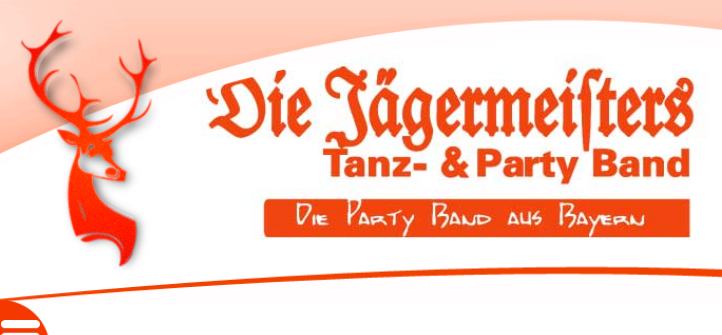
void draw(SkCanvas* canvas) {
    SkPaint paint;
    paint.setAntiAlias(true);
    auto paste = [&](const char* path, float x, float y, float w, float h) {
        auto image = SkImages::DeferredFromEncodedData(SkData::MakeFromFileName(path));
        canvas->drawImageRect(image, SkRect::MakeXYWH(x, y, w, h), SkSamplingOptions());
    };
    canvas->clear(SK_ColorWHITE);
    paste("pic1.png", 200, 53, 508, 187);
    paste("pic2.png", 0, 0, 722, 303);
    paste("pic3.png", 20, 19, 141, 251);
    paste("pic4.png", 0, 300, 49, 35);
}
